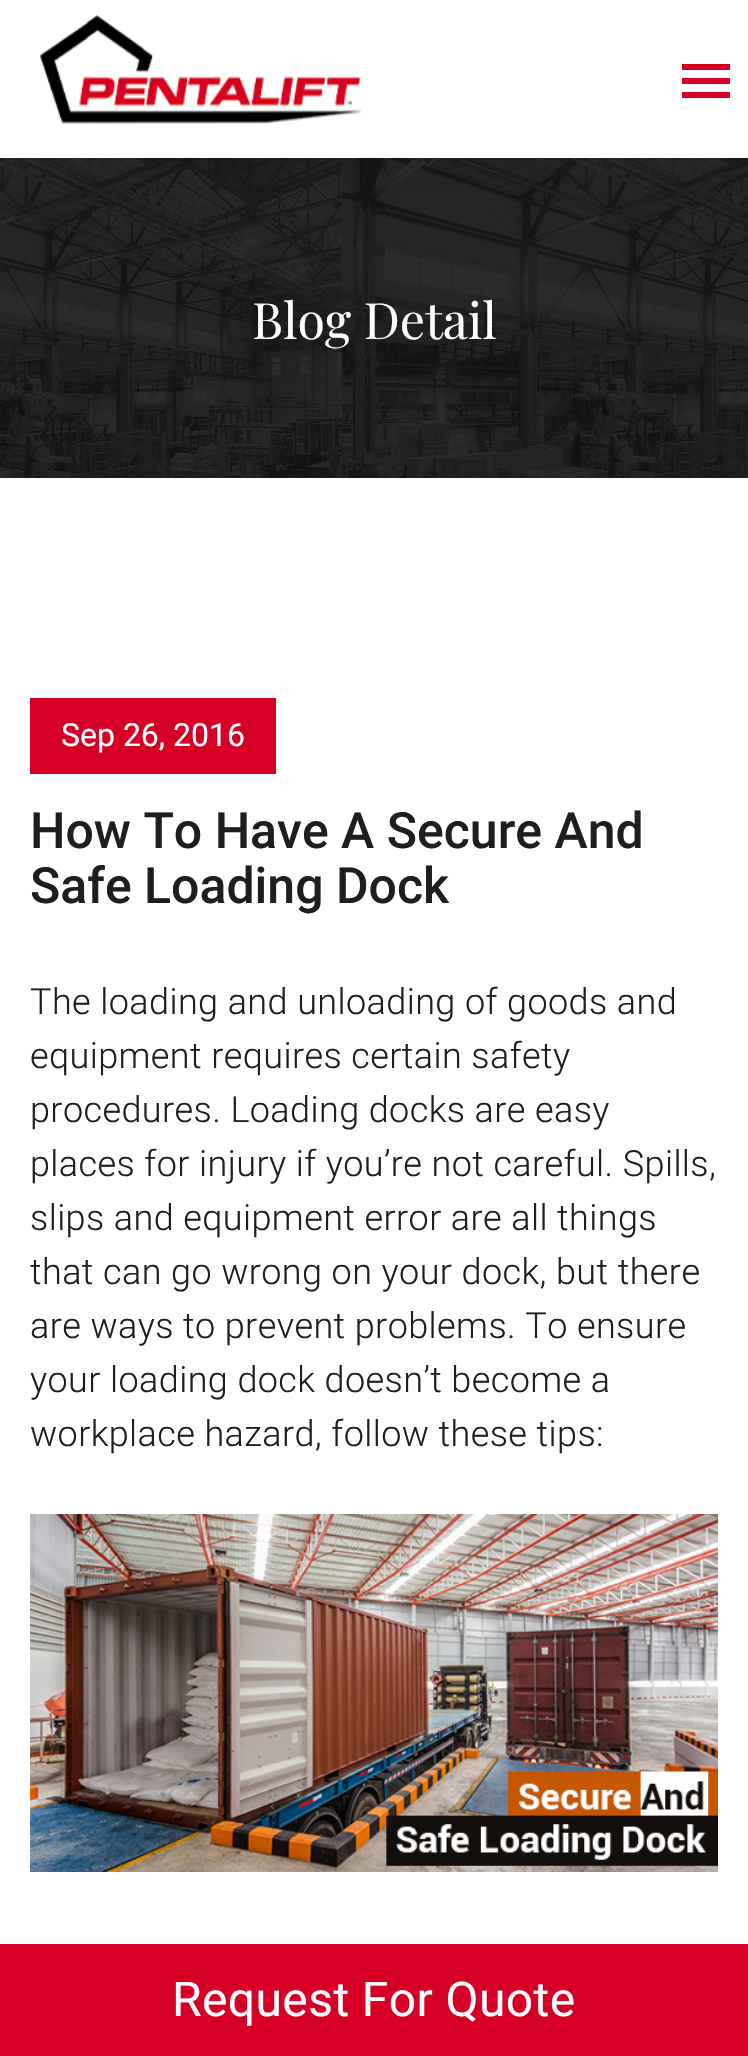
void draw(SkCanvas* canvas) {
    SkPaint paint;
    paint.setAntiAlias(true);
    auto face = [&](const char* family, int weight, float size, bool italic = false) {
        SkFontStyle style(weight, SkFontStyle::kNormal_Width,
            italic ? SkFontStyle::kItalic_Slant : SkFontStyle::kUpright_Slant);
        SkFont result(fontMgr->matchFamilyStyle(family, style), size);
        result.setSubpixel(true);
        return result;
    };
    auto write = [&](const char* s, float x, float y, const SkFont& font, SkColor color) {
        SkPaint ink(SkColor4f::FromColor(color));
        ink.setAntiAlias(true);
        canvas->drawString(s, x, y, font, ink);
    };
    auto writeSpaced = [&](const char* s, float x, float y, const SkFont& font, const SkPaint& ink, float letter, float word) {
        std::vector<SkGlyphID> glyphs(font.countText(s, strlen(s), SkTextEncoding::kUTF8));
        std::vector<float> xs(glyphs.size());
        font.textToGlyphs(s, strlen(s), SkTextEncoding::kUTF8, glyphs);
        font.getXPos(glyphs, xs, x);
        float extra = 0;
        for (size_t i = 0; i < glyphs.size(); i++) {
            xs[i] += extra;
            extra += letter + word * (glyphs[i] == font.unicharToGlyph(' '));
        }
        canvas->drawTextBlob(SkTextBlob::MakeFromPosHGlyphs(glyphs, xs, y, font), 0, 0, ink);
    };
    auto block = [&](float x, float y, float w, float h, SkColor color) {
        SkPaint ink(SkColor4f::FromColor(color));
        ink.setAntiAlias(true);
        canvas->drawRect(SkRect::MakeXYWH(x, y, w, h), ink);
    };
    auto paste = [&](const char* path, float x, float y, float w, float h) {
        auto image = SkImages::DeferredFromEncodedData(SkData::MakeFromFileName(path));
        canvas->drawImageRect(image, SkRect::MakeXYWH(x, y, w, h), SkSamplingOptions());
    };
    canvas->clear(SK_ColorWHITE);
    paste("pic1.png", 39, 15, 322, 110);
    block(682, 78, 48, 6, SkColorSetRGB(214, 0, 39));
    block(682, 64, 48, 6, SkColorSetRGB(214, 0, 39));
    block(682, 92, 48, 6, SkColorSetRGB(214, 0, 39));
    paste("pic2.png", 0, 158, 748, 320);
    auto kFont1 = face("Playfair Display", 400, 50);
    write("Blog Detail", 252, 339, kFont1, SK_ColorWHITE);
    block(30, 698, 246, 76, SkColorSetRGB(214, 0, 39));
    auto kFont2 = face("Roboto", 400, 32);
    write("Sep 26, 2016", 61, 746, kFont2, SK_ColorWHITE);
    auto kFont3 = face("Roboto", 500, 50);
    write("How To Have A Secure And", 30, 848, kFont3, SkColorSetRGB(30, 30, 30));
    write("Safe Loading Dock", 30, 903, kFont3, SkColorSetRGB(30, 30, 30));
    auto kFont4 = face("Roboto", 300, 36);
    paint.setColor(SkColorSetRGB(30, 30, 30));
    writeSpaced("The loading and unloading of goods and", 30, 1014, kFont4, paint, 0.4f, 0);
    writeSpaced("equipment requires certain safety", 30, 1068, kFont4, paint, 0.4f, 0);
    writeSpaced("procedures. Loading docks are easy", 30, 1122, kFont4, paint, 0.4f, 0);
    writeSpaced("places for injury if you’re not careful. Spills,", 30, 1176, kFont4, paint, 0.4f, 0);
    writeSpaced("slips and equipment error are all things", 30, 1230, kFont4, paint, 0.4f, 0);
    writeSpaced("that can go wrong on your dock, but there", 30, 1284, kFont4, paint, 0.4f, 0);
    writeSpaced("are ways to prevent problems. To ensure", 30, 1338, kFont4, paint, 0.4f, 0);
    writeSpaced("your loading dock doesn’t become a", 30, 1392, kFont4, paint, 0.4f, 0);
    writeSpaced("workplace hazard, follow these tips:", 30, 1446, kFont4, paint, 0.4f, 0);
    paste("pic3.png", 30, 1514, 688, 358);
    block(0, 1944, 748, 112, SkColorSetRGB(214, 0, 39));
    auto kFont5 = face("Roboto", 400, 48);
    paint.setColor(SK_ColorWHITE);
    writeSpaced("Request For Quote", 172, 2016, kFont5, paint, 0.4f, 0);
}
